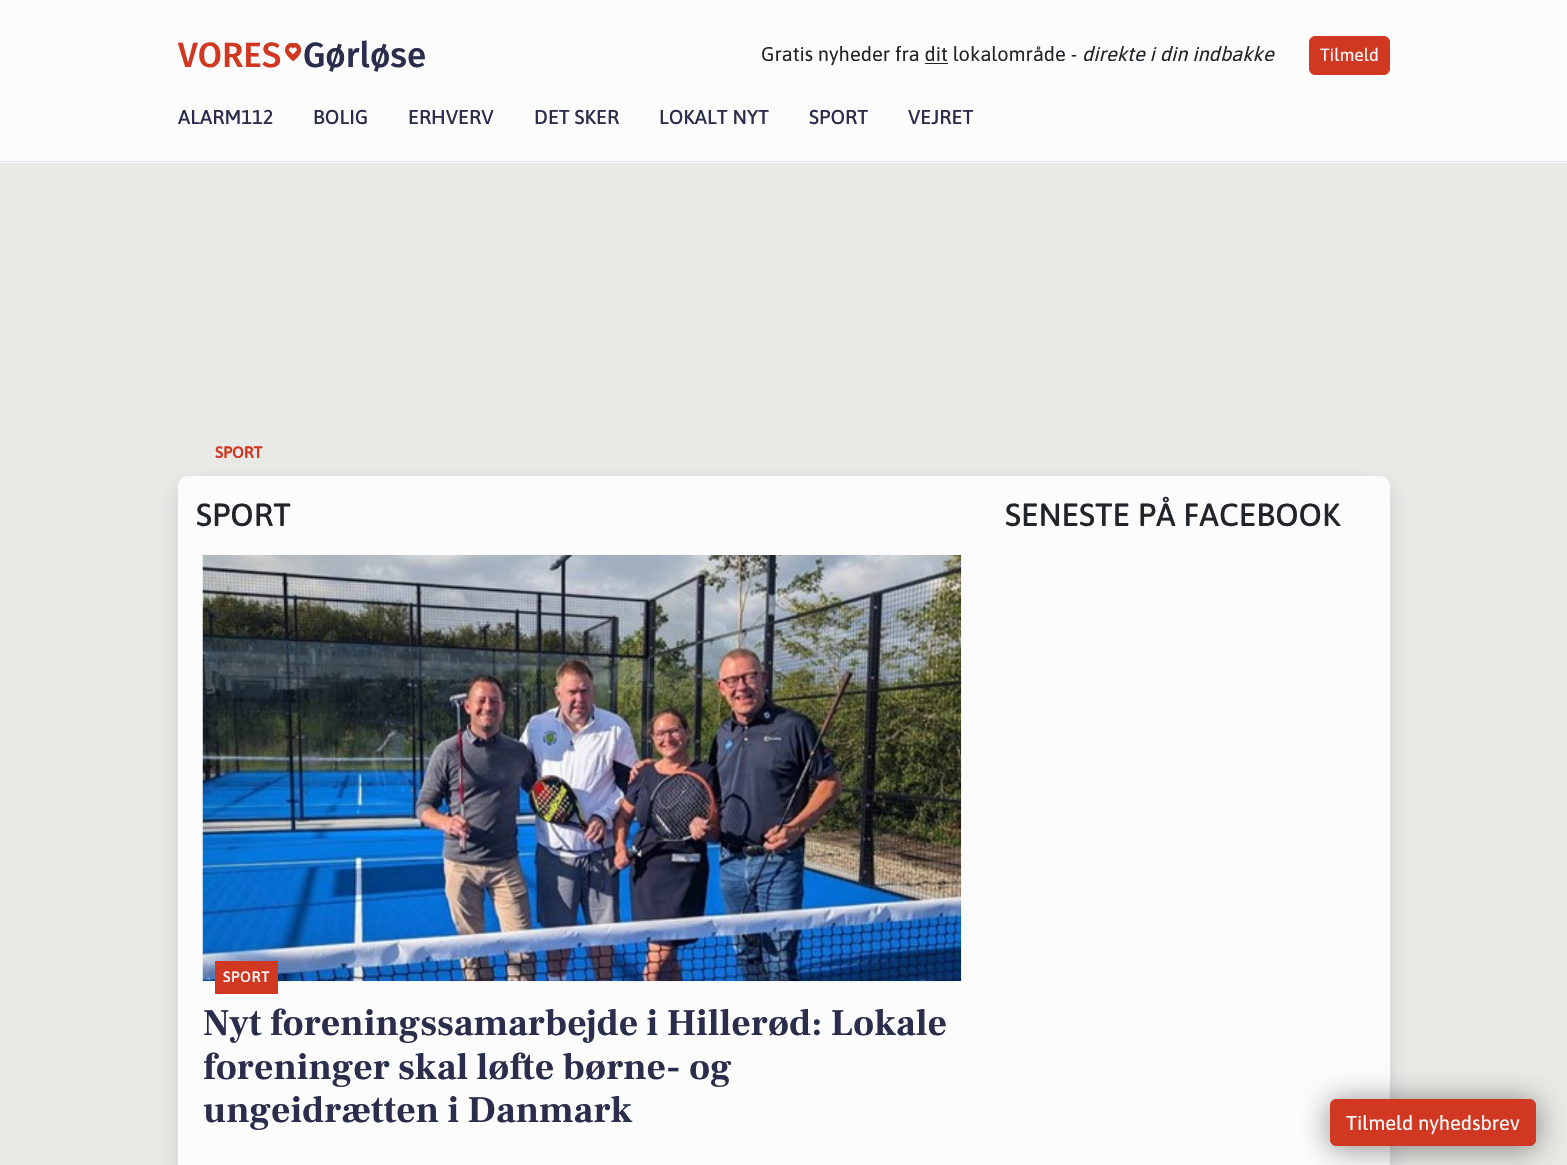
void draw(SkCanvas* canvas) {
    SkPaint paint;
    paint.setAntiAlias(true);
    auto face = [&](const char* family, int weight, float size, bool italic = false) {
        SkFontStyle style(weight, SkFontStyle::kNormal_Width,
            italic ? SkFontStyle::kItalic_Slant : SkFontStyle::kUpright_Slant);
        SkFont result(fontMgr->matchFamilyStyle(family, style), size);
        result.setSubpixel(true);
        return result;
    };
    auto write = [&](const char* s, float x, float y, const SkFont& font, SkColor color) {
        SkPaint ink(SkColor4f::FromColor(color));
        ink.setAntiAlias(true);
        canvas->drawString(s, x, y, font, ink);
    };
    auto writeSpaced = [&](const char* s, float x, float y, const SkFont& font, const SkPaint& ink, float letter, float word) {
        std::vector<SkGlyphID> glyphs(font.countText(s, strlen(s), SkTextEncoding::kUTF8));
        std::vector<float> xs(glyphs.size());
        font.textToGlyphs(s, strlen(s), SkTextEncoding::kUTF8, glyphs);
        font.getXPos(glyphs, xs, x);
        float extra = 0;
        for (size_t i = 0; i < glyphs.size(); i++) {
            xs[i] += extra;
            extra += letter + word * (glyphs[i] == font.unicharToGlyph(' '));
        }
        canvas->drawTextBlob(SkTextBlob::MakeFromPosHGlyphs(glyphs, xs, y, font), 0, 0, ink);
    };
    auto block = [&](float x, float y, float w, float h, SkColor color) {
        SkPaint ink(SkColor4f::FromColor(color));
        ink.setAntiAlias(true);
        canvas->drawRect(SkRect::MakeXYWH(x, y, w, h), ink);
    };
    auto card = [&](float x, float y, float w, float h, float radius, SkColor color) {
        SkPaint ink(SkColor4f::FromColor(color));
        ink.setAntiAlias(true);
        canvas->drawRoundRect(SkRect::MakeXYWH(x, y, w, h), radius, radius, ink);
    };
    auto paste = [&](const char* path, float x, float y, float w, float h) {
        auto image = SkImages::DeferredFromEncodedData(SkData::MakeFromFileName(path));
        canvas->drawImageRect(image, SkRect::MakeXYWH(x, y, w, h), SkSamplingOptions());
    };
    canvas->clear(SkColorSetRGB(233, 234, 229));
    block(0, 0, 1567, 163, SkColorSetRGB(252, 252, 252));
    block(0, 161, 1567, 1, SkColorSetRGB(222, 226, 230));
    auto kFont1 = face("Fira Sans", 500, 35);
    write("VORES", 178, 67, kFont1, SkColorSetRGB(208, 56, 34));
    paste("pic1.png", 285, 43, 16, 18);
    write("Gørløse", 303, 67, kFont1, SkColorSetRGB(43, 45, 76));
    auto kFont2 = face("Asap", 400, 20);
    write("Gratis nyheder fra dit lokalområde -", 761, 61, kFont2, SkColorSetRGB(33, 37, 41));
    block(925, 63, 23, 1, SkColorSetRGB(33, 37, 41));
    auto kFont3 = face("Asap", 400, 20, true);
    write("direkte i din indbakke", 1082, 61, kFont3, SkColorSetRGB(33, 37, 41));
    paint.setColor(SkColorSetRGB(208, 56, 34));
    canvas->drawRoundRect(SkRect::MakeXYWH(1309.5f, 36.5f, 80, 38), 5.5f, 5.5f, paint);
    paint.setStyle(SkPaint::kStroke_Style);
    paint.setStrokeWidth(1);
    canvas->drawRoundRect(SkRect::MakeXYWH(1309.5f, 36.5f, 80, 38), 5.5f, 5.5f, paint);
    auto kFont4 = face("Asap", 400, 17.5f);
    write("Tilmeld", 1320, 61, kFont4, SkColorSetRGB(252, 252, 252));
    auto kFont5 = face("Asap", 500, 20);
    write("ALARM112", 178, 124, kFont5, SkColorSetRGB(43, 45, 76));
    write("BOLIG", 313, 124, kFont5, SkColorSetRGB(43, 45, 76));
    write("ERHVERV", 408, 124, kFont5, SkColorSetRGB(43, 45, 76));
    write("DET SKER", 534, 124, kFont5, SkColorSetRGB(43, 45, 76));
    write("LOKALT NYT", 659, 124, kFont5, SkColorSetRGB(43, 45, 76));
    write("SPORT", 809, 124, kFont5, SkColorSetRGB(43, 45, 76));
    write("VEJRET", 908, 124, kFont5, SkColorSetRGB(43, 45, 76));
    paint.setStyle(SkPaint::kFill_Style);
    paint.setColor(SkColorSetARGB(38, 43, 45, 76));
    paint.setMaskFilter(SkMaskFilter::MakeBlur(kNormal_SkBlurStyle, 10));
    canvas->drawRoundRect(SkRect::MakeXYWH(178, 486, 1212, 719), 10, 10, paint);
    paint.setMaskFilter(nullptr);
    auto kFont6 = face("Asap", 700, 16);
    write("SPORT", 215, 458, kFont6, SkColorSetRGB(208, 56, 34));
    card(178, 476, 1212, 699, 10, SkColorSetRGB(252, 252, 252));
    auto kFont7 = face("Asap", 500, 32);
    write("SPORT", 196, 526, kFont7, SkColorSetRGB(33, 37, 41));
    paste("pic2.png", 202, 555, 760, 427);
    block(215, 961, 63, 33, SkColorSetRGB(208, 56, 34));
    auto kFont8 = face("Asap", 500, 15);
    paint.setColor(SkColorSetRGB(252, 252, 252));
    writeSpaced("SPORT", 223, 982, kFont8, paint, 0.5f, 0);
    auto kFont9 = face("Frank Ruhl Libre", 700, 37.5f);
    write("Nyt foreningssamarbejde i Hillerød: Lokale", 203, 1035, kFont9, SkColorSetRGB(43, 45, 76));
    write("foreninger skal løfte børne- og", 203, 1079, kFont9, SkColorSetRGB(43, 45, 76));
    write("ungeidrætten i Danmark", 203, 1122, kFont9, SkColorSetRGB(43, 45, 76));
    write("SENESTE PÅ FACEBOOK", 1005, 526, kFont7, SkColorSetRGB(33, 37, 41));
    paint.setColor(SkColorSetARGB(115, 0, 0, 0));
    paint.setMaskFilter(SkMaskFilter::MakeBlur(kNormal_SkBlurStyle, 15));
    canvas->drawRoundRect(SkRect::MakeXYWH(1330, 1101, 206, 48), 6, 6, paint);
    paint.setMaskFilter(nullptr);
    paint.setColor(SkColorSetRGB(208, 56, 34));
    canvas->drawRoundRect(SkRect::MakeXYWH(1330.5f, 1099.5f, 205, 46), 5.5f, 5.5f, paint);
    paint.setStyle(SkPaint::kStroke_Style);
    canvas->drawRoundRect(SkRect::MakeXYWH(1330.5f, 1099.5f, 205, 46), 5.5f, 5.5f, paint);
    write("Tilmeld nyhedsbrev", 1346, 1130, kFont2, SkColorSetRGB(252, 252, 252));
}
